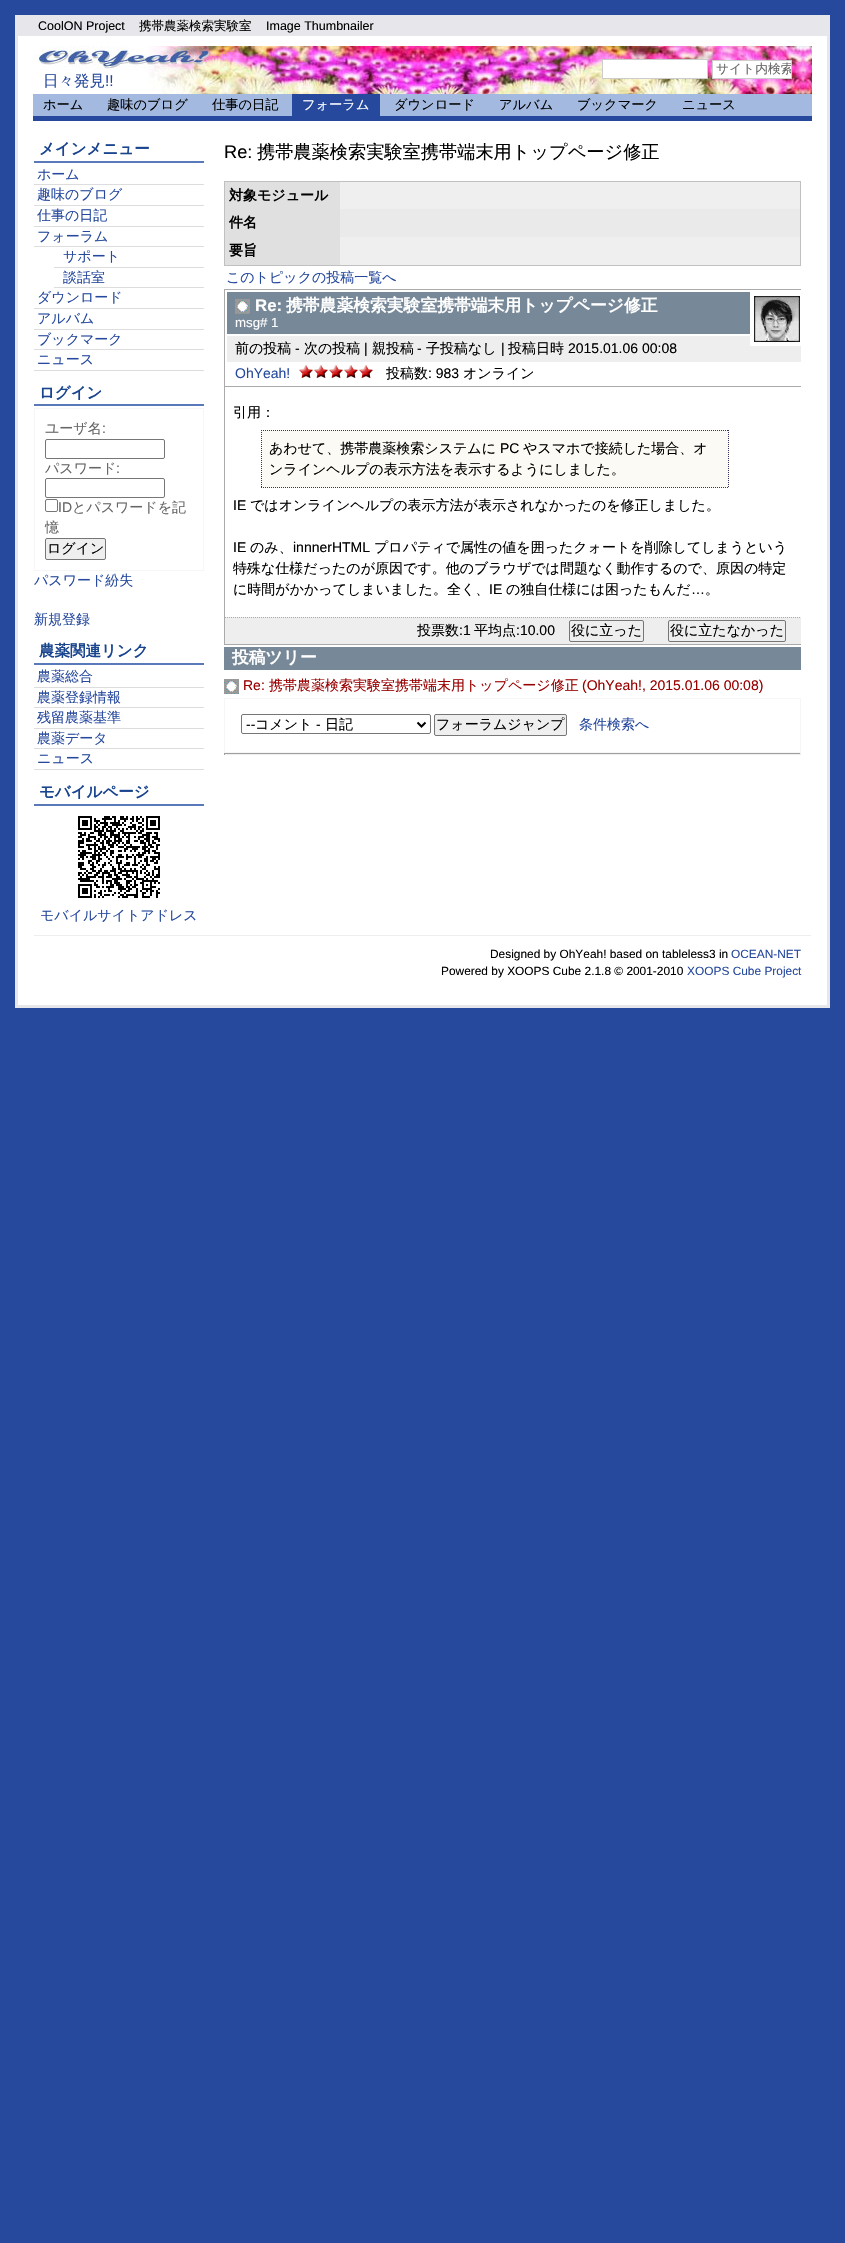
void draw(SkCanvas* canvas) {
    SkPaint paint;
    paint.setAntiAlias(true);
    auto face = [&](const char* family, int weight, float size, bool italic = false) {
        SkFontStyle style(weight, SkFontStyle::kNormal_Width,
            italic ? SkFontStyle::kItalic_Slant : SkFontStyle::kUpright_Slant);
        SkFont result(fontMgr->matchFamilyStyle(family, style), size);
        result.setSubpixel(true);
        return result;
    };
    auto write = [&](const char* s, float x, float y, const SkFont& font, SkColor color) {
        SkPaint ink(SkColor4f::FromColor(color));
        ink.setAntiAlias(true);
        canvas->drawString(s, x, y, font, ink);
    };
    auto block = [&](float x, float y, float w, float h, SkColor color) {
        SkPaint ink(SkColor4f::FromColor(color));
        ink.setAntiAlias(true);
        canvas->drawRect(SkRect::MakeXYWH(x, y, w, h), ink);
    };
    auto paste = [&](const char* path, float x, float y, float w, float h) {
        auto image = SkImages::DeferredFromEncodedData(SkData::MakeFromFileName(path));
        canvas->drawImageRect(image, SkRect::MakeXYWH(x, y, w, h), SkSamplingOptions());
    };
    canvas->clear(SkColorSetRGB(38, 73, 157));
    block(18, 36, 809, 969, SK_ColorWHITE);
    paint.setStyle(SkPaint::kStroke_Style);
    paint.setStrokeWidth(3);
    paint.setColor(SkColorSetRGB(231, 231, 235));
    canvas->drawRect(SkRect::MakeXYWH(16.5f, 16.5f, 812, 990), paint);
    block(18, 18, 809, 18, SkColorSetRGB(231, 231, 235));
    auto kFont1 = face("Liberation Sans", 400, 12.5f);
    write("CoolON Project", 38, 30, kFont1, SK_ColorBLACK);
    auto kFont2 = face("WenQuanYi Zen Hei", 500, 12.5f);
    write("携帯農薬検索実験室", 139, 30, kFont2, SK_ColorBLACK);
    write("Image Thumbnailer", 266, 30, kFont1, SK_ColorBLACK);
    paste("pic1.png", 233, 46, 579, 48);
    paste("pic2.png", 33, 46, 200, 48);
    paint.setStyle(SkPaint::kFill_Style);
    paint.setColor(SK_ColorWHITE);
    canvas->drawRect(SkRect::MakeXYWH(602.5f, 59.5f, 105, 19), paint);
    paint.setStyle(SkPaint::kStroke_Style);
    paint.setStrokeWidth(1);
    paint.setColor(SkColorSetRGB(204, 204, 204));
    canvas->drawRect(SkRect::MakeXYWH(602.5f, 59.5f, 105, 19), paint);
    paint.setStyle(SkPaint::kFill_Style);
    paint.setColor(SK_ColorWHITE);
    canvas->drawRect(SkRect::MakeXYWH(712.5f, 60.5f, 79, 18), paint);
    paint.setStyle(SkPaint::kStroke_Style);
    paint.setColor(SkColorSetRGB(204, 204, 204));
    canvas->drawRect(SkRect::MakeXYWH(712.5f, 60.5f, 79, 18), paint);
    canvas->save();
    canvas->clipRect(SkRect::MakeXYWH(713, 61, 78, 17));
    auto kFont3 = face("WenQuanYi Zen Hei", 500, 12.75f);
    write("サイト内検索", 716, 73, kFont3, SkColorSetRGB(102, 102, 102));
    canvas->restore();
    auto kFont4 = face("WenQuanYi Zen Hei", 500, 15.5f);
    write("日々発見", 43, 86, kFont4, SkColorSetRGB(38, 73, 157));
    auto kFont5 = face("Liberation Sans", 400, 15.5f);
    write("!!", 105, 86, kFont5, SkColorSetRGB(38, 73, 157));
    block(33, 94, 779, 22, SkColorSetRGB(163, 185, 224));
    block(33, 116, 779, 5, SkColorSetRGB(38, 73, 157));
    auto kFont6 = face("WenQuanYi Zen Hei", 500, 13.25f);
    write("ホーム", 43, 109, kFont6, SK_ColorBLACK);
    write("趣味のブログ", 107, 109, kFont6, SK_ColorBLACK);
    write("仕事の日記", 212, 109, kFont6, SK_ColorBLACK);
    block(292, 94, 88, 22, SkColorSetRGB(38, 73, 157));
    write("フォーラム", 302, 109, kFont6, SK_ColorWHITE);
    write("ダウンロード", 394, 109, kFont6, SK_ColorBLACK);
    write("アルバム", 499, 109, kFont6, SK_ColorBLACK);
    write("ブックマーク", 577, 109, kFont6, SK_ColorBLACK);
    write("ニュース", 682, 109, kFont6, SK_ColorBLACK);
    block(34, 161, 170, 2, SkColorSetRGB(90, 121, 186));
    auto kFont7 = face("WenQuanYi Zen Hei", 700, 15.5f);
    write("メインメニュー", 39, 154, kFont7, SkColorSetRGB(25, 68, 142));
    block(34, 184, 170, 1, SkColorSetRGB(221, 221, 221));
    auto kFont8 = face("WenQuanYi Zen Hei", 500, 14);
    write("ホーム", 37, 179, kFont8, SkColorSetRGB(38, 73, 157));
    block(34, 205, 170, 1, SkColorSetRGB(221, 221, 221));
    write("趣味のブログ", 37, 199, kFont8, SkColorSetRGB(38, 73, 157));
    block(34, 226, 170, 1, SkColorSetRGB(221, 221, 221));
    write("仕事の日記", 37, 220, kFont8, SkColorSetRGB(38, 73, 157));
    block(34, 246, 170, 1, SkColorSetRGB(221, 221, 221));
    write("フォーラム", 37, 241, kFont8, SkColorSetRGB(38, 73, 157));
    block(54, 267, 150, 1, SkColorSetRGB(221, 221, 221));
    write("サポート", 63, 261, kFont8, SkColorSetRGB(38, 73, 157));
    block(54, 287, 150, 1, SkColorSetRGB(221, 221, 221));
    write("談話室", 63, 282, kFont8, SkColorSetRGB(38, 73, 157));
    block(34, 308, 170, 1, SkColorSetRGB(221, 221, 221));
    write("ダウンロード", 37, 302, kFont8, SkColorSetRGB(38, 73, 157));
    block(34, 329, 170, 1, SkColorSetRGB(221, 221, 221));
    write("アルバム", 37, 323, kFont8, SkColorSetRGB(38, 73, 157));
    block(34, 349, 170, 1, SkColorSetRGB(221, 221, 221));
    write("ブックマーク", 37, 344, kFont8, SkColorSetRGB(38, 73, 157));
    block(34, 370, 170, 1, SkColorSetRGB(221, 221, 221));
    write("ニュース", 37, 364, kFont8, SkColorSetRGB(38, 73, 157));
    block(34, 404, 170, 2, SkColorSetRGB(90, 121, 186));
    write("ログイン", 39, 398, kFont7, SkColorSetRGB(25, 68, 142));
    paint.setColor(SkColorSetRGB(246, 246, 246));
    canvas->drawRect(SkRect::MakeXYWH(34.5f, 408.5f, 169, 162), paint);
    write("ユーザ名", 45, 433, kFont8, SkColorSetRGB(102, 102, 102));
    auto kFont9 = face("Liberation Sans", 400, 14);
    write(":", 102, 433, kFont9, SkColorSetRGB(102, 102, 102));
    paint.setColor(SkColorSetRGB(118, 118, 118));
    canvas->drawRoundRect(SkRect::MakeXYWH(45.5f, 439.5f, 119, 19), 1.5f, 1.5f, paint);
    write("パスワード", 45, 473, kFont8, SkColorSetRGB(102, 102, 102));
    write(":", 116, 473, kFont9, SkColorSetRGB(102, 102, 102));
    canvas->drawRoundRect(SkRect::MakeXYWH(45.5f, 478.5f, 119, 19), 1.5f, 1.5f, paint);
    canvas->drawRoundRect(SkRect::MakeXYWH(45.5f, 499.5f, 12, 12), 1.5f, 1.5f, paint);
    write("ID", 58, 512, kFont9, SkColorSetRGB(102, 102, 102));
    write("とパスワードを記", 72, 512, kFont8, SkColorSetRGB(102, 102, 102));
    write("憶", 45, 532, kFont8, SkColorSetRGB(102, 102, 102));
    paint.setStyle(SkPaint::kFill_Style);
    paint.setColor(SkColorSetRGB(239, 239, 239));
    canvas->drawRoundRect(SkRect::MakeXYWH(45.5f, 538.5f, 60, 21), 1.5f, 1.5f, paint);
    paint.setStyle(SkPaint::kStroke_Style);
    paint.setColor(SkColorSetRGB(118, 118, 118));
    canvas->drawRoundRect(SkRect::MakeXYWH(45.5f, 538.5f, 60, 21), 1.5f, 1.5f, paint);
    write("ログイン", 47, 553, kFont8, SK_ColorBLACK);
    write("パスワード紛失", 34, 585, kFont8, SkColorSetRGB(38, 73, 157));
    write("新規登録", 34, 624, kFont8, SkColorSetRGB(38, 73, 157));
    block(34, 663, 170, 2, SkColorSetRGB(90, 121, 186));
    write("農薬関連リンク", 39, 656, kFont7, SkColorSetRGB(25, 68, 142));
    block(34, 687, 170, 1, SkColorSetRGB(221, 221, 221));
    write("農薬総合", 37, 681, kFont8, SkColorSetRGB(38, 73, 157));
    block(34, 707, 170, 1, SkColorSetRGB(221, 221, 221));
    write("農薬登録情報", 37, 702, kFont8, SkColorSetRGB(38, 73, 157));
    block(34, 728, 170, 1, SkColorSetRGB(221, 221, 221));
    write("残留農薬基準", 37, 722, kFont8, SkColorSetRGB(38, 73, 157));
    block(34, 748, 170, 1, SkColorSetRGB(221, 221, 221));
    write("農薬データ", 37, 743, kFont8, SkColorSetRGB(38, 73, 157));
    block(34, 769, 170, 1, SkColorSetRGB(221, 221, 221));
    write("ニュース", 37, 763, kFont8, SkColorSetRGB(38, 73, 157));
    block(34, 804, 170, 2, SkColorSetRGB(90, 121, 186));
    write("モバイルページ", 39, 797, kFont7, SkColorSetRGB(25, 68, 142));
    paste("pic3.png", 78, 816, 82, 82);
    write("モバイルサイトアドレス", 40, 920, kFont8, SkColorSetRGB(38, 73, 157));
    auto kFont10 = face("Liberation Sans", 400, 18.2f);
    write("Re:", 224, 158, kFont10, SK_ColorBLACK);
    auto kFont11 = face("WenQuanYi Zen Hei", 500, 18.2f);
    write("携帯農薬検索実験室携帯端末用トップページ修正", 257, 158, kFont11, SK_ColorBLACK);
    paint.setColor(SkColorSetRGB(192, 192, 192));
    canvas->drawRect(SkRect::MakeXYWH(224.5f, 181.5f, 576, 84), paint);
    block(225, 182, 115, 83, SkColorSetRGB(224, 224, 224));
    auto kFont12 = face("WenQuanYi Zen Hei", 700, 14);
    write("対象モジュール", 229, 200, kFont12, SK_ColorBLACK);
    block(340, 182, 460, 27, SkColorSetRGB(239, 239, 239));
    write("件名", 229, 227, kFont12, SK_ColorBLACK);
    block(340, 209, 460, 28, SkColorSetRGB(234, 234, 234));
    write("要旨", 229, 255, kFont12, SK_ColorBLACK);
    block(340, 237, 460, 28, SkColorSetRGB(239, 239, 239));
    write("このトピックの投稿一覧へ", 226, 282, kFont8, SkColorSetRGB(38, 73, 157));
    block(224, 289, 577, 1, SkColorSetRGB(170, 170, 170));
    block(224, 289, 1, 356, SkColorSetRGB(170, 170, 170));
    block(227, 292, 523, 42, SkColorSetRGB(119, 136, 153));
    paste("pic4.png", 235, 299, 15, 15);
    auto kFont13 = face("Liberation Sans", 700, 16.8f);
    write("Re:", 255, 311, kFont13, SK_ColorWHITE);
    auto kFont14 = face("WenQuanYi Zen Hei", 700, 16.8f);
    write("携帯農薬検索実験室携帯端末用トップページ修正", 286, 311, kFont14, SK_ColorWHITE);
    block(227, 336, 574, 26, SkColorSetRGB(238, 238, 238));
    canvas->save();
    canvas->clipRect(SkRect::MakeXYWH(224, 137, 577, 618));
    paint.setStrokeWidth(4);
    paint.setColor(SK_ColorWHITE);
    canvas->drawRect(SkRect::MakeXYWH(752, 294, 50, 50), paint);
    canvas->restore();
    paste("pic5.png", 754, 296, 46, 46);
    auto kFont15 = face("Liberation Sans", 400, 13.25f);
    write("msg# 1", 235, 327, kFont15, SK_ColorWHITE);
    write("前の投稿", 235, 353, kFont8, SK_ColorBLACK);
    write("-", 295, 353, kFont9, SK_ColorBLACK);
    write("次の投稿", 304, 353, kFont8, SK_ColorBLACK);
    write("|", 364, 353, kFont9, SK_ColorBLACK);
    write("親投稿", 372, 353, kFont8, SK_ColorBLACK);
    write("-", 417, 353, kFont9, SK_ColorBLACK);
    write("子投稿なし", 426, 353, kFont8, SK_ColorBLACK);
    write("|", 501, 353, kFont9, SK_ColorBLACK);
    write("投稿日時", 508, 353, kFont8, SK_ColorBLACK);
    write("2015.01.06 00:08", 568, 353, kFont9, SK_ColorBLACK);
    write("OhYeah!", 235, 378, kFont9, SkColorSetRGB(38, 73, 157));
    paste("pic6.png", 299, 365, 74, 13);
    write("投稿数", 386, 378, kFont8, SK_ColorBLACK);
    write(": 983", 428, 378, kFont9, SK_ColorBLACK);
    write("オンライン", 463, 378, kFont8, SK_ColorBLACK);
    block(225, 386, 576, 1, SkColorSetRGB(170, 170, 170));
    write("引用：", 233, 417, kFont8, SK_ColorBLACK);
    block(261, 430, 468, 58, SkColorSetRGB(251, 250, 245));
    paint.setStrokeWidth(1);
    paint.setColor(SkColorSetRGB(51, 51, 102));
    paint.setPathEffect(SkDashPathEffect::Make({{1, 1}}, 0));
    canvas->drawPath(SkPathBuilder().moveTo(261, 430.5f).lineTo(729, 430.5f).detach(), paint);
    paint.setPathEffect(nullptr);
    paint.setPathEffect(SkDashPathEffect::Make({{1, 1}}, 0));
    canvas->drawPath(SkPathBuilder().moveTo(728.5f, 430).lineTo(728.5f, 488).detach(), paint);
    paint.setPathEffect(nullptr);
    paint.setPathEffect(SkDashPathEffect::Make({{1, 1}}, 0));
    canvas->drawPath(SkPathBuilder().moveTo(261, 487.5f).lineTo(729, 487.5f).detach(), paint);
    paint.setPathEffect(nullptr);
    paint.setPathEffect(SkDashPathEffect::Make({{1, 1}}, 0));
    canvas->drawPath(SkPathBuilder().moveTo(261.5f, 430).lineTo(261.5f, 488).detach(), paint);
    paint.setPathEffect(nullptr);
    write("あわせて、携帯農薬検索システムに", 269, 453, kFont8, SK_ColorBLACK);
    write("PC", 500, 453, kFont9, SK_ColorBLACK);
    write("やスマホで接続した場合、オ", 523, 453, kFont8, SK_ColorBLACK);
    write("ンラインヘルプの表示方法を表示するようにしました。", 269, 474, kFont8, SK_ColorBLACK);
    write("IE", 233, 510, kFont9, SK_ColorBLACK);
    write("ではオンラインヘルプの表示方法が表示されなかったのを修正しました。", 250, 510, kFont8, SK_ColorBLACK);
    write("IE", 233, 552, kFont9, SK_ColorBLACK);
    write("のみ、", 250, 552, kFont8, SK_ColorBLACK);
    write("innnerHTML", 293, 552, kFont9, SK_ColorBLACK);
    write("プロパティで属性の値を囲ったクォートを削除してしまうという", 374, 552, kFont8, SK_ColorBLACK);
    write("特殊な仕様だったのが原因です。他のブラウザでは問題なく動作するので、原因の特定", 233, 573, kFont8, SK_ColorBLACK);
    write("に時間がかかってしまいました。全く、", 233, 594, kFont8, SK_ColorBLACK);
    write("IE", 489, 594, kFont9, SK_ColorBLACK);
    write("の独自仕様には困ったもんだ", 506, 594, kFont8, SK_ColorBLACK);
    write("…", 691, 594, kFont9, SK_ColorBLACK);
    write("。", 705, 594, kFont8, SK_ColorBLACK);
    block(225, 617, 576, 27, SkColorSetRGB(238, 238, 238));
    canvas->save();
    canvas->clipRect(SkRect::MakeXYWH(224, 137, 577, 618));
    paint.setColor(SkColorSetRGB(170, 170, 170));
    paint.setPathEffect(SkDashPathEffect::Make({{1, 1}}, 0));
    canvas->drawPath(SkPathBuilder().moveTo(225, 617.5f).lineTo(806, 617.5f).detach(), paint);
    paint.setPathEffect(nullptr);
    canvas->restore();
    block(225, 644, 576, 1, SkColorSetRGB(170, 170, 170));
    write("投票数", 417, 635, kFont8, SK_ColorBLACK);
    write(":1", 459, 635, kFont9, SK_ColorBLACK);
    write("平均点", 474, 635, kFont8, SK_ColorBLACK);
    write(":10.00", 516, 635, kFont9, SK_ColorBLACK);
    paint.setColor(SkColorSetRGB(118, 118, 118));
    canvas->drawRoundRect(SkRect::MakeXYWH(569.5f, 620.5f, 74, 21), 1.5f, 1.5f, paint);
    write("役に立った", 571, 635, kFont8, SK_ColorBLACK);
    canvas->drawRoundRect(SkRect::MakeXYWH(668.5f, 620.5f, 117, 21), 1.5f, 1.5f, paint);
    write("役に立たなかった", 670, 635, kFont8, SK_ColorBLACK);
    block(224, 647, 577, 23, SkColorSetRGB(119, 136, 153));
    write("投稿ツリー", 232, 663, kFont14, SK_ColorWHITE);
    paste("pic4.png", 224, 679, 15, 15);
    write("Re:", 243, 690, kFont9, SkColorSetRGB(153, 0, 0));
    write("携帯農薬検索実験室携帯端末用トップページ修正", 269, 690, kFont8, SkColorSetRGB(153, 0, 0));
    write("(OhYeah!, 2015.01.06 00:08)", 582, 690, kFont9, SkColorSetRGB(153, 0, 0));
    paint.setColor(SkColorSetRGB(246, 246, 246));
    canvas->drawRect(SkRect::MakeXYWH(224.5f, 698.5f, 576, 54), paint);
    paint.setColor(SkColorSetRGB(118, 118, 118));
    canvas->drawRoundRect(SkRect::MakeXYWH(241.5f, 714.5f, 189, 19), 1.5f, 1.5f, paint);
    paint.setStrokeWidth(2);
    paint.setColor(SK_ColorBLACK);
    canvas->drawPath(SkPathBuilder().moveTo(417.5f, 722.5f).lineTo(421.5f, 726.5f).lineTo(425.5f, 722.5f).detach(), paint);
    write("--", 246, 729, kFont9, SK_ColorBLACK);
    write("コメント", 255, 729, kFont8, SK_ColorBLACK);
    write("-", 316, 729, kFont9, SK_ColorBLACK);
    write("日記", 325, 729, kFont8, SK_ColorBLACK);
    paint.setStyle(SkPaint::kFill_Style);
    paint.setColor(SkColorSetRGB(239, 239, 239));
    canvas->drawRoundRect(SkRect::MakeXYWH(434.5f, 714.5f, 132, 21), 1.5f, 1.5f, paint);
    paint.setStyle(SkPaint::kStroke_Style);
    paint.setStrokeWidth(1);
    paint.setColor(SkColorSetRGB(118, 118, 118));
    canvas->drawRoundRect(SkRect::MakeXYWH(434.5f, 714.5f, 132, 21), 1.5f, 1.5f, paint);
    write("フォーラムジャンプ", 436, 729, kFont8, SK_ColorBLACK);
    write("条件検索へ", 579, 729, kFont8, SkColorSetRGB(38, 73, 157));
    block(224, 753, 577, 1, SkColorSetRGB(159, 159, 159));
    block(800, 753, 1, 2, SkColorSetRGB(238, 238, 238));
    block(224, 754, 577, 1, SkColorSetRGB(238, 238, 238));
    block(224, 753, 1, 2, SkColorSetRGB(159, 159, 159));
    block(34, 935, 777, 1, SkColorSetRGB(238, 238, 238));
    auto kFont16 = face("Liberation Sans", 400, 11.9f);
    write("Designed by OhYeah! based on tableless3 in", 490, 958, kFont16, SK_ColorBLACK);
    write("OCEAN-NET", 731, 958, kFont16, SkColorSetRGB(38, 73, 157));
    write("Powered by XOOPS Cube 2.1.8 © 2001-2010", 441, 975, kFont16, SK_ColorBLACK);
    write("XOOPS Cube Project", 687, 975, kFont16, SkColorSetRGB(38, 73, 157));
}
